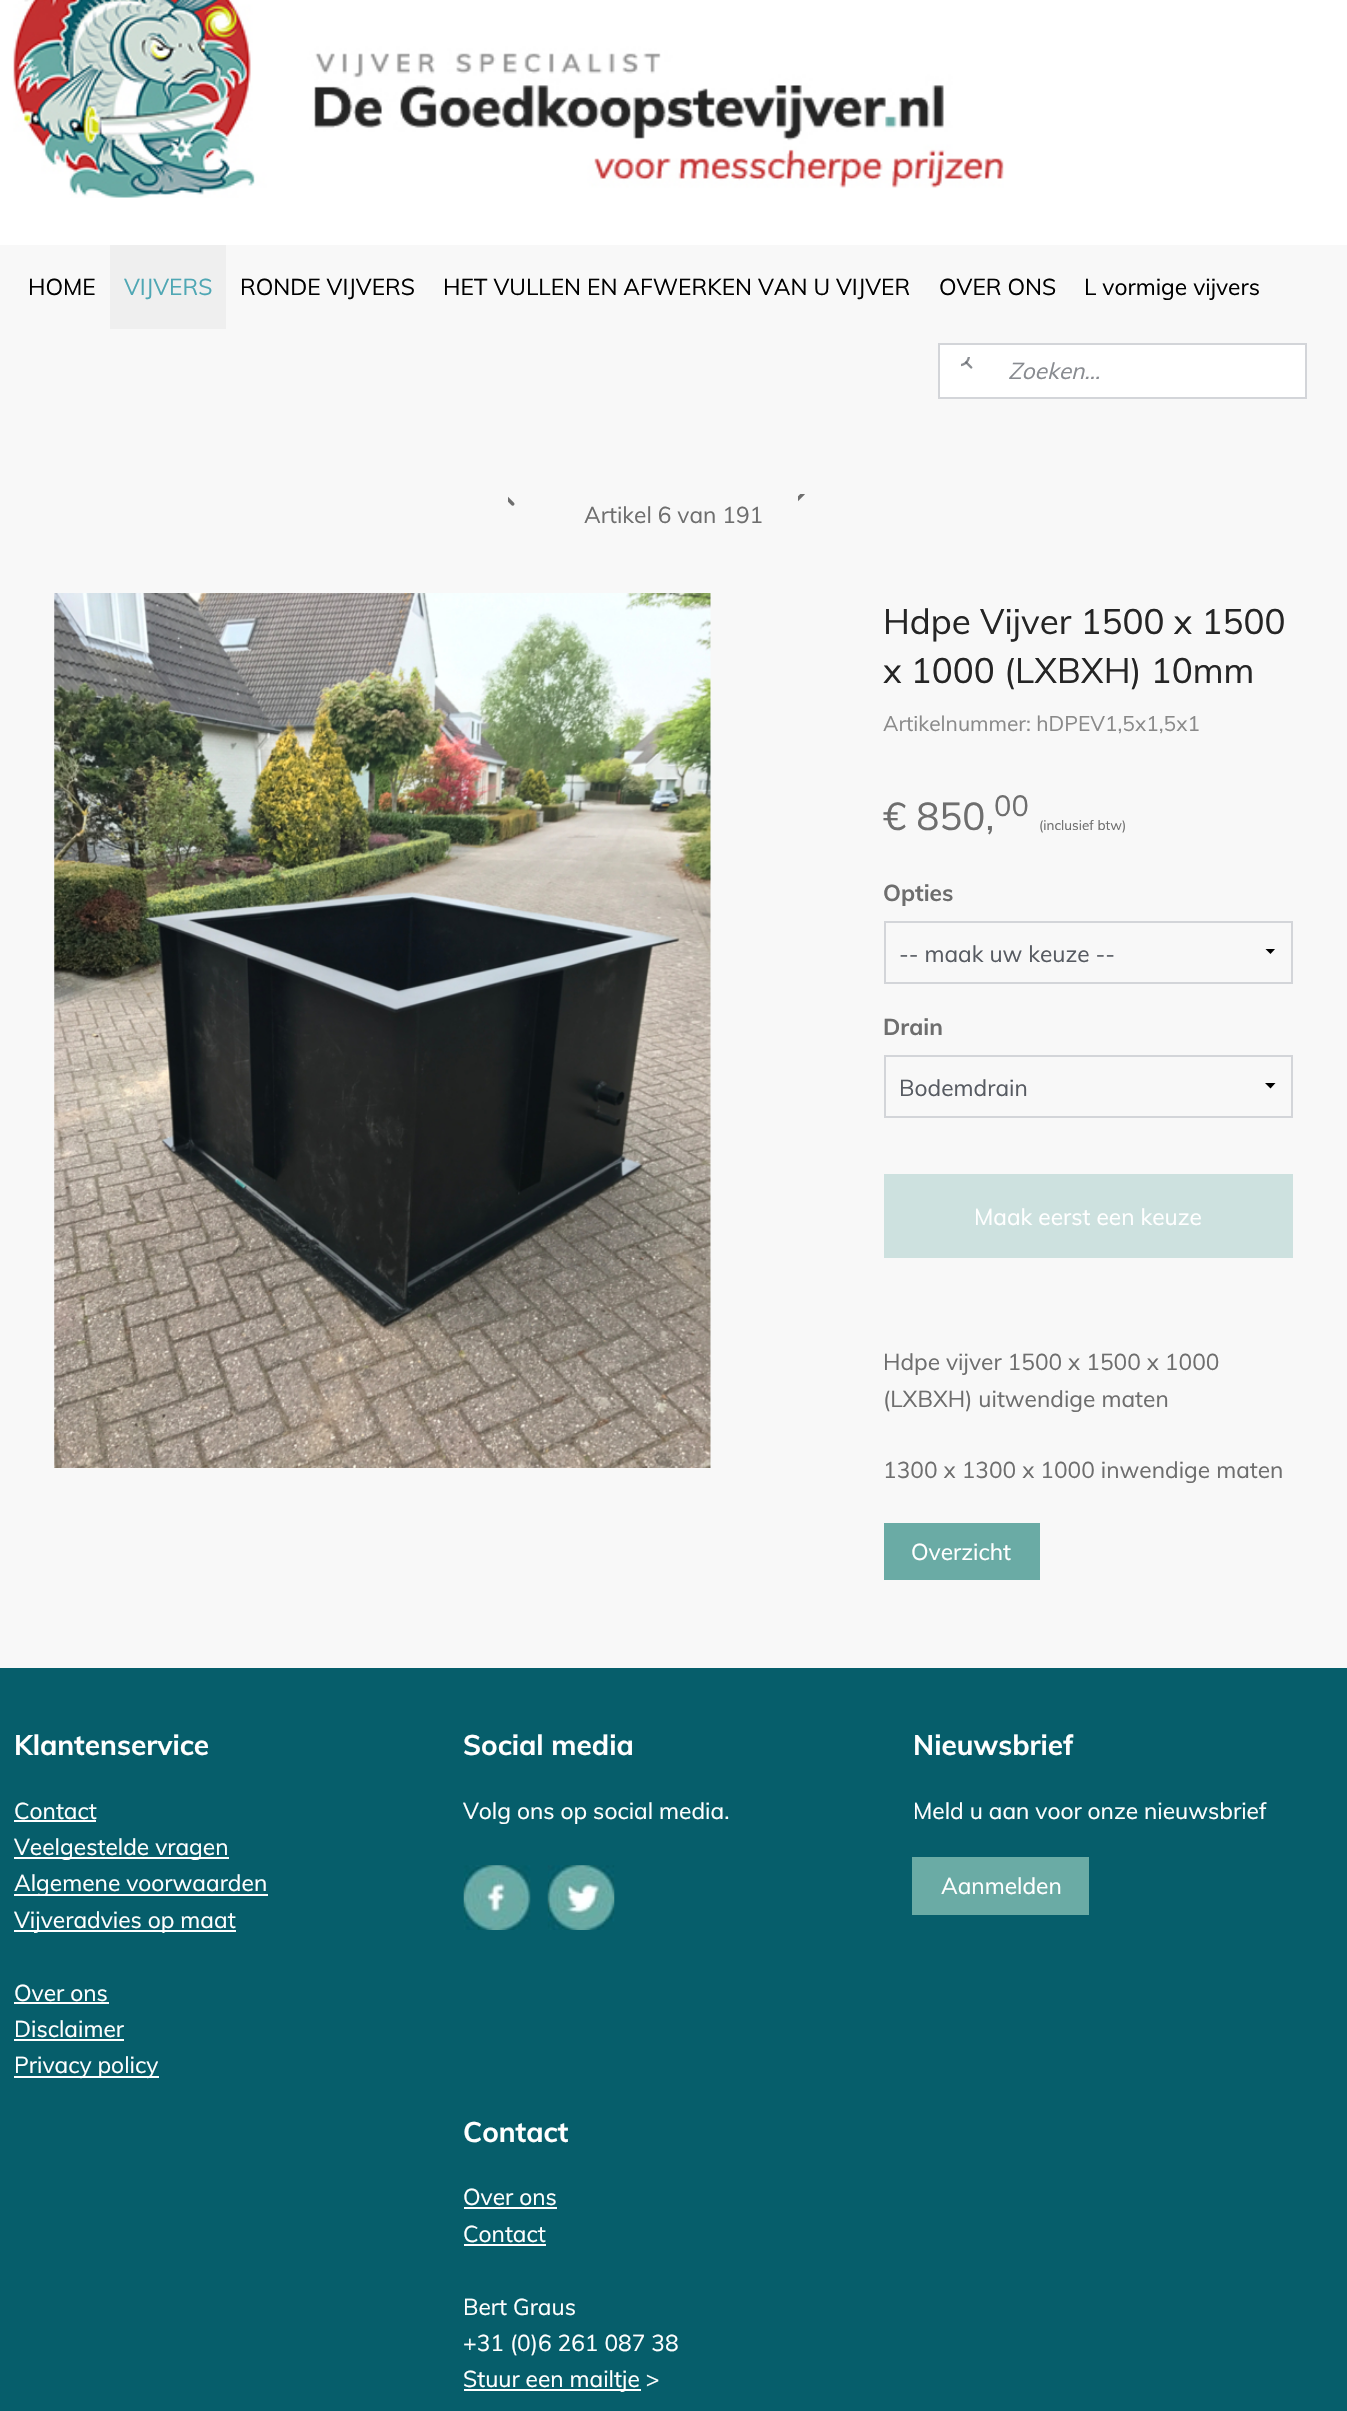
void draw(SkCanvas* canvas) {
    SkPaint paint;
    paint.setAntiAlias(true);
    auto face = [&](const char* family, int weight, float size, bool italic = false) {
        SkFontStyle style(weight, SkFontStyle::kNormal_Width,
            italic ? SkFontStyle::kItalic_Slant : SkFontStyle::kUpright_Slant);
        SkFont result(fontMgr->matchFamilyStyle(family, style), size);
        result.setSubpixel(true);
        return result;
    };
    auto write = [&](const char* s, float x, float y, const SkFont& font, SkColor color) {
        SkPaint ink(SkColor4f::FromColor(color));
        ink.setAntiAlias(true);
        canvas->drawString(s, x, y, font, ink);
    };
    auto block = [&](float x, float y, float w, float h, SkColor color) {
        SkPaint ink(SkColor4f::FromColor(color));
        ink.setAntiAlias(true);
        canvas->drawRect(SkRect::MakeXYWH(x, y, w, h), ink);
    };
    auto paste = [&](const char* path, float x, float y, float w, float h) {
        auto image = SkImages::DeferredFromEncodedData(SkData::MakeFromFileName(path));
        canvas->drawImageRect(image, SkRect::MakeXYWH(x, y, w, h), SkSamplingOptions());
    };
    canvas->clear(SkColorSetRGB(248, 248, 248));
    block(0, 0, 1347, 245, SK_ColorWHITE);
    paste("pic1.png", 13, 0, 991, 198);
    auto kFont1 = face("Muli", 400, 22.75f);
    write("HOME", 28, 295, kFont1, SK_ColorBLACK);
    block(110, 245, 116, 84, SkColorSetRGB(239, 239, 239));
    write("VIJVERS", 124, 295, kFont1, SkColorSetRGB(79, 167, 180));
    write("RONDE VIJVERS", 240, 295, kFont1, SK_ColorBLACK);
    write("HET VULLEN EN AFWERKEN VAN U VIJVER", 443, 295, kFont1, SK_ColorBLACK);
    write("OVER ONS", 939, 295, kFont1, SK_ColorBLACK);
    write("L vormige vijvers", 1084, 295, kFont1, SK_ColorBLACK);
    paint.setColor(SK_ColorWHITE);
    canvas->drawRect(SkRect::MakeXYWH(939, 344, 367, 54), paint);
    paint.setStyle(SkPaint::kStroke_Style);
    paint.setStrokeWidth(2);
    paint.setColor(SkColorSetRGB(211, 213, 217));
    canvas->drawRect(SkRect::MakeXYWH(939, 344, 367, 54), paint);
    paste("pic2.png", 961, 357, 12, 12);
    auto kFont2 = face("Muli", 400, 22.75f, true);
    write("Zoeken...", 1008, 379, kFont2, SkColorSetRGB(137, 140, 145));
    paste("pic3.png", 508, 496, 7, 10);
    paste("pic4.png", 798, 494, 7, 8);
    write("Artikel 6 van 191", 584, 523, kFont1, SkColorSetRGB(110, 110, 110));
    paste("pic5.png", 54, 593, 657, 875);
    auto kFont3 = face("Muli", 400, 35);
    write("Hdpe Vijver 1500 x 1500", 883, 634, kFont3, SkColorSetRGB(37, 37, 37));
    write("x 1000 (LXBXH) 10mm", 883, 683, kFont3, SkColorSetRGB(37, 37, 37));
    auto kFont4 = face("Muli", 400, 21);
    write("Artikelnummer: hDPEV1,5x1,5x1", 883, 731, kFont4, SkColorSetRGB(138, 138, 138));
    auto kFont5 = face("Muli", 400, 38.5f);
    write("€ 850,", 883, 830, kFont5, SkColorSetRGB(110, 110, 110));
    auto kFont6 = face("Muli", 400, 29);
    write("00", 994, 816, kFont6, SkColorSetRGB(110, 110, 110));
    auto kFont7 = face("Muli", 400, 13.5f);
    write("(inclusief btw)", 1039, 830, kFont7, SkColorSetRGB(110, 110, 110));
    auto kFont8 = face("Muli", 700, 22.75f);
    write("Opties", 883, 901, kFont8, SkColorSetRGB(110, 110, 110));
    canvas->save();
    canvas->clipRect(SkRect::MakeXYWH(1250, 949, 42, 5));
    paint.setStyle(SkPaint::kFill_Style);
    paint.setColor(SK_ColorBLACK);
    canvas->drawPath(SkPathBuilder().moveTo(1275.5f, 948.5f).lineTo(1270.5f, 954).lineTo(1265, 948.5f).close().detach(), paint);
    canvas->restore();
    paint.setStyle(SkPaint::kStroke_Style);
    paint.setColor(SkColorSetRGB(211, 213, 217));
    canvas->drawRect(SkRect::MakeXYWH(885, 922, 407, 61), paint);
    write("-- maak uw keuze --", 899, 962, kFont1, SkColorSetRGB(87, 91, 98));
    write("Drain", 883, 1035, kFont8, SkColorSetRGB(110, 110, 110));
    paint.setStyle(SkPaint::kFill_Style);
    paint.setColor(SK_ColorBLACK);
    canvas->drawPath(SkPathBuilder().moveTo(1275.5f, 1083).lineTo(1270.5f, 1088.5f).lineTo(1265, 1083).close().detach(), paint);
    paint.setStyle(SkPaint::kStroke_Style);
    paint.setColor(SkColorSetRGB(211, 213, 217));
    canvas->drawRect(SkRect::MakeXYWH(885, 1056, 407, 61), paint);
    write("Bodemdrain", 899, 1096, kFont1, SkColorSetRGB(87, 91, 98));
    block(884, 1174, 409, 84, SkColorSetRGB(205, 225, 223));
    write("Maak eerst een keuze", 974, 1225, kFont1, SK_ColorWHITE);
    write("Hdpe vijver 1500 x 1500 x 1000", 883, 1370, kFont1, SkColorSetRGB(110, 110, 110));
    write("(LXBXH) uitwendige maten", 883, 1407, kFont1, SkColorSetRGB(110, 110, 110));
    write("1300 x 1300 x 1000 inwendige maten", 883, 1478, kFont1, SkColorSetRGB(110, 110, 110));
    block(884, 1523, 156, 57, SkColorSetRGB(106, 171, 165));
    write("Overzicht", 911, 1560, kFont1, SK_ColorWHITE);
    block(0, 1668, 1347, 743, SkColorSetRGB(6, 94, 107));
    auto kFont9 = face("Muli", 700, 28);
    write("Klantenservice", 14, 1755, kFont9, SK_ColorWHITE);
    write("Contact", 14, 1819, kFont1, SK_ColorWHITE);
    block(14, 1820, 82, 2, SK_ColorWHITE);
    block(14, 1857, 215, 2, SK_ColorWHITE);
    write("Veelgestelde vragen", 14, 1855, kFont1, SK_ColorWHITE);
    block(14, 1894, 254, 2, SK_ColorWHITE);
    write("Algemene voorwaarden", 14, 1891, kFont1, SK_ColorWHITE);
    block(14, 1930, 222, 2, SK_ColorWHITE);
    write("Vijveradvies op maat", 14, 1928, kFont1, SK_ColorWHITE);
    write("Over ons", 14, 2001, kFont1, SK_ColorWHITE);
    block(14, 2002, 95, 2, SK_ColorWHITE);
    write("Disclaimer", 14, 2037, kFont1, SK_ColorWHITE);
    block(14, 2039, 110, 2, SK_ColorWHITE);
    block(14, 2076, 145, 2, SK_ColorWHITE);
    write("Privacy policy", 14, 2073, kFont1, SK_ColorWHITE);
    write("Social media", 463, 1755, kFont9, SK_ColorWHITE);
    write("Volg ons op social media.", 463, 1819, kFont1, SK_ColorWHITE);
    paste("pic6.png", 463, 1865, 68, 65);
    paste("pic7.png", 547, 1865, 68, 65);
    write("Nieuwsbrief", 913, 1755, kFont9, SK_ColorWHITE);
    write("Meld u aan voor onze nieuwsbrief", 913, 1819, kFont1, SK_ColorWHITE);
    block(912, 1857, 177, 58, SkColorSetRGB(106, 171, 165));
    write("Aanmelden", 941, 1894, kFont1, SK_ColorWHITE);
    write("Contact", 463, 2142, kFont9, SK_ColorWHITE);
    write("Over ons", 463, 2205, kFont1, SK_ColorWHITE);
    block(464, 2207, 93, 2, SK_ColorWHITE);
    write("Contact", 463, 2242, kFont1, SK_ColorWHITE);
    block(464, 2244, 82, 2, SK_ColorWHITE);
    write("Bert Graus", 463, 2315, kFont1, SK_ColorWHITE);
    write("+31 (0)6 261 087 38", 463, 2351, kFont1, SK_ColorWHITE);
    block(464, 2389, 177, 2, SK_ColorWHITE);
    write("Stuur een mailtje >", 463, 2387, kFont1, SK_ColorWHITE);
}
